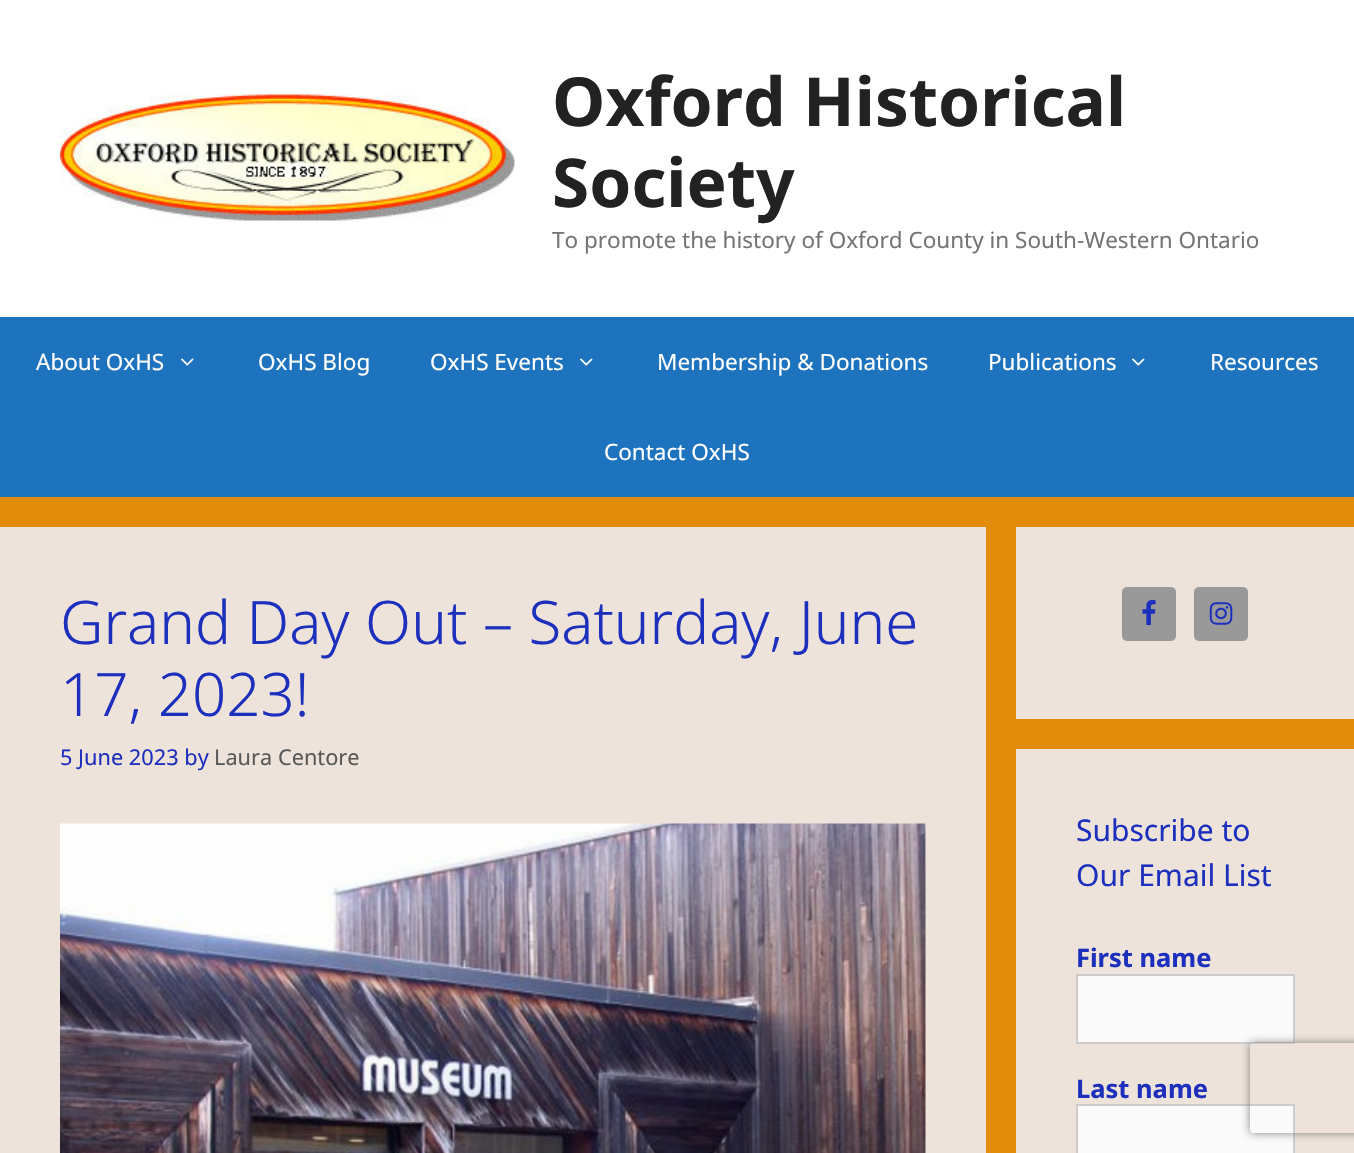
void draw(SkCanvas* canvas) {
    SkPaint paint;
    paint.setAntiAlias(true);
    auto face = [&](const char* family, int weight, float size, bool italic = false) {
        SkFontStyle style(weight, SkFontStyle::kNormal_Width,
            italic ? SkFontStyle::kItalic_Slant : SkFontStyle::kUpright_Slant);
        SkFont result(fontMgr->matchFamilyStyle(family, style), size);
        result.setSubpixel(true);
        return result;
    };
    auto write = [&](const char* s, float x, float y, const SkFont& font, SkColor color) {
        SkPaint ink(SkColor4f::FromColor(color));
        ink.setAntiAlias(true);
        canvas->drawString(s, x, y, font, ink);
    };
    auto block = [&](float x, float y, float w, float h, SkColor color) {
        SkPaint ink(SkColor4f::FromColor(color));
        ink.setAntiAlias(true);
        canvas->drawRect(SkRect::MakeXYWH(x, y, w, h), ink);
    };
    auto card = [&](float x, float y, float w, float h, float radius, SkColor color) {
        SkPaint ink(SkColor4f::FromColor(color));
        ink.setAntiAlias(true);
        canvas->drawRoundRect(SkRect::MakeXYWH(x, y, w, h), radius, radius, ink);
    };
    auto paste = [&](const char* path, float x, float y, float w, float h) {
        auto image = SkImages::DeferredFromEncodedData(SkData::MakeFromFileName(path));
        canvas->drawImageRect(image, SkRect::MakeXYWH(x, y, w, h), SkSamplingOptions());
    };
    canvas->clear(SkColorSetRGB(226, 140, 11));
    block(0, 0, 1354, 317, SK_ColorWHITE);
    paste("pic1.png", 60, 94, 455, 127);
    auto kFont1 = face("Noto Sans", 700, 67.5f);
    write("Oxford Historical", 552, 126, kFont1, SkColorSetRGB(34, 34, 34));
    write("Society", 552, 207, kFont1, SkColorSetRGB(34, 34, 34));
    auto kFont2 = face("Noto Sans", 400, 22.5f);
    write("To promote the history of Oxford County in South-Western Ontario", 552, 248, kFont2, SkColorSetRGB(117, 117, 117));
    block(0, 317, 1354, 180, SkColorSetRGB(30, 115, 190));
    write("About OxHS", 36, 370, kFont2, SK_ColorWHITE);
    paste("pic2.png", 181, 358, 13, 8);
    write("OxHS Blog", 258, 370, kFont2, SK_ColorWHITE);
    write("OxHS Events", 430, 370, kFont2, SK_ColorWHITE);
    paste("pic2.png", 580, 358, 13, 8);
    write("Membership & Donations", 657, 370, kFont2, SK_ColorWHITE);
    write("Publications", 988, 370, kFont2, SK_ColorWHITE);
    paste("pic2.png", 1132, 358, 13, 8);
    write("Resources", 1210, 370, kFont2, SK_ColorWHITE);
    write("Contact OxHS", 604, 460, kFont2, SK_ColorWHITE);
    block(0, 527, 986, 626, SkColorSetRGB(237, 227, 218));
    auto kFont3 = face("Noto Sans", 300, 60);
    write("Grand Day Out – Saturday, June", 60, 644, kFont3, SkColorSetRGB(28, 47, 189));
    write("17, 2023!", 60, 716, kFont3, SkColorSetRGB(28, 47, 189));
    auto kFont4 = face("Noto Sans", 400, 21.75f);
    write("5 June 2023 by", 60, 765, kFont4, SkColorSetRGB(28, 47, 189));
    write("Laura Centore", 214, 765, kFont4, SkColorSetRGB(89, 89, 89));
    paste("pic3.png", 60, 823, 866, 330);
    block(1016, 527, 338, 192, SkColorSetRGB(237, 227, 218));
    card(1122, 587, 54, 54, 5, SkColorSetRGB(153, 153, 153));
    paste("pic4.png", 1142, 600, 14, 25);
    card(1194, 587, 54, 54, 5, SkColorSetRGB(153, 153, 153));
    paste("pic5.png", 1209, 602, 24, 23);
    block(1016, 749, 338, 404, SkColorSetRGB(237, 227, 218));
    auto kFont5 = face("Noto Sans", 400, 30);
    write("Subscribe to", 1076, 841, kFont5, SkColorSetRGB(28, 47, 189));
    write("Our Email List", 1076, 886, kFont5, SkColorSetRGB(28, 47, 189));
    auto kFont6 = face("Noto Sans", 700, 25.5f);
    write("First name", 1076, 967, kFont6, SkColorSetRGB(28, 47, 189));
    paint.setColor(SkColorSetRGB(250, 250, 250));
    canvas->drawRect(SkRect::MakeXYWH(1077, 975, 217, 68), paint);
    paint.setStyle(SkPaint::kStroke_Style);
    paint.setStrokeWidth(2);
    paint.setColor(SkColorSetRGB(204, 204, 204));
    canvas->drawRect(SkRect::MakeXYWH(1077, 975, 217, 68), paint);
    write("Last name", 1076, 1098, kFont6, SkColorSetRGB(28, 47, 189));
    paint.setStyle(SkPaint::kFill_Style);
    paint.setColor(SkColorSetRGB(250, 250, 250));
    canvas->drawRect(SkRect::MakeXYWH(1077, 1105, 217, 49), paint);
    paint.setStyle(SkPaint::kStroke_Style);
    paint.setColor(SkColorSetRGB(204, 204, 204));
    canvas->drawRect(SkRect::MakeXYWH(1077, 1105, 217, 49), paint);
    canvas->save();
    canvas->clipPath(SkPathBuilder(SkPathFillType::kEvenOdd).moveTo(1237, 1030).lineTo(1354, 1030).lineTo(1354, 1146).lineTo(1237, 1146).close().moveTo(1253, 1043).lineTo(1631, 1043).cubicTo(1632.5f, 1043, 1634, 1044.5f, 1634, 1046).lineTo(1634, 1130).cubicTo(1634, 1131.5f, 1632.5f, 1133, 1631, 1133).lineTo(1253, 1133).cubicTo(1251.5f, 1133, 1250, 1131.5f, 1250, 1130).lineTo(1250, 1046).cubicTo(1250, 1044.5f, 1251.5f, 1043, 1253, 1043).close().detach(), true);
    paint.setStyle(SkPaint::kFill_Style);
    paint.setColor(SkColorSetRGB(128, 128, 128));
    paint.setMaskFilter(SkMaskFilter::MakeBlur(kNormal_SkBlurStyle, 4));
    canvas->drawRoundRect(SkRect::MakeXYWH(1250, 1043, 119, 90), 3, 3, paint);
    paint.setMaskFilter(nullptr);
    canvas->restore();
}
